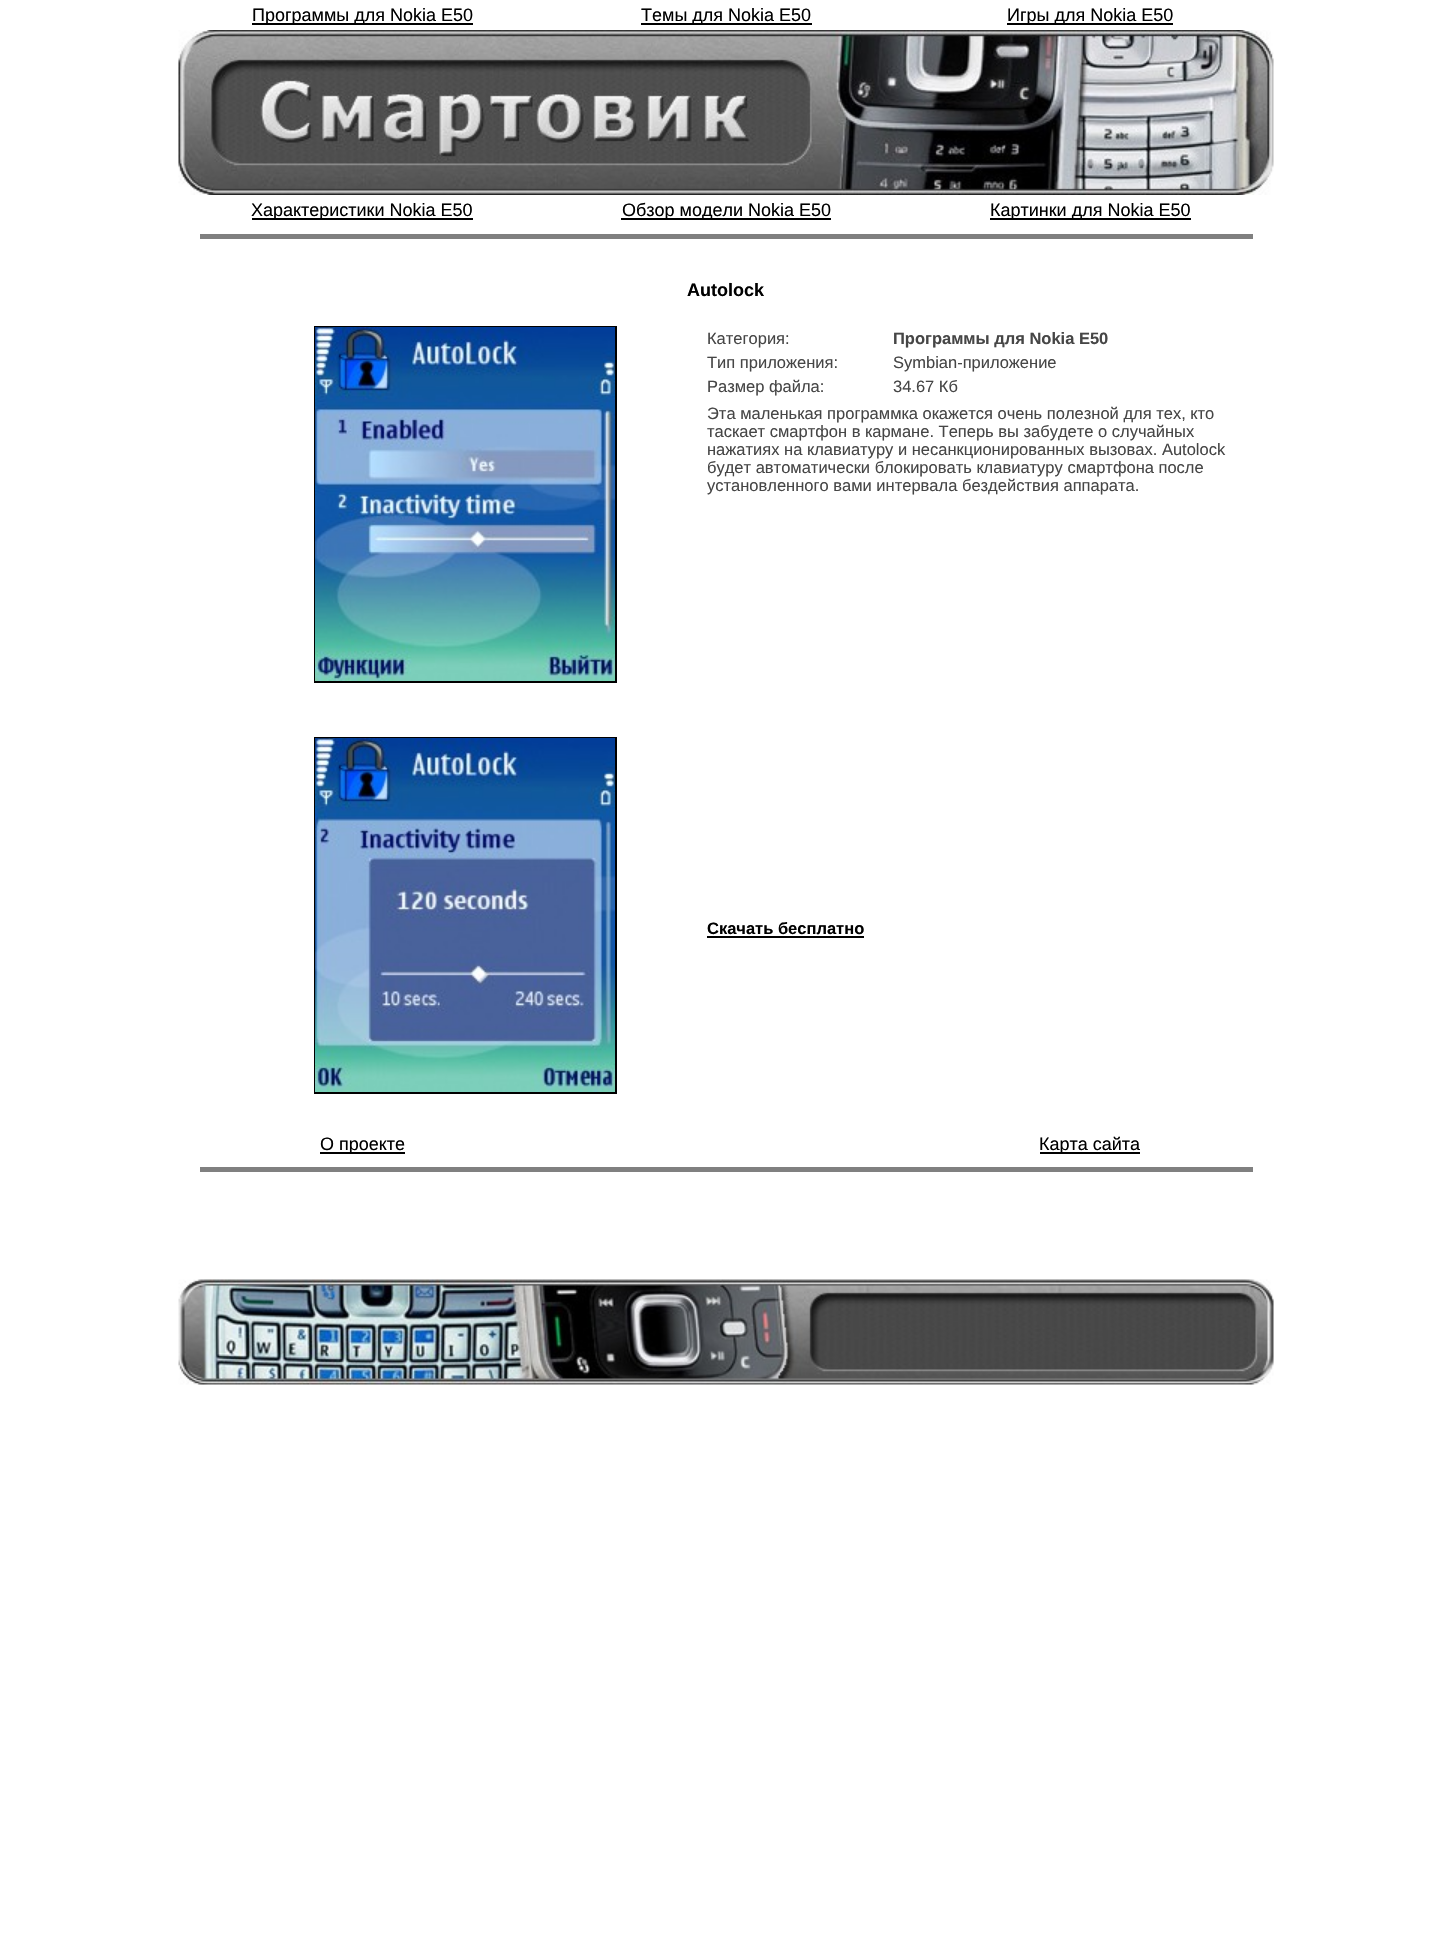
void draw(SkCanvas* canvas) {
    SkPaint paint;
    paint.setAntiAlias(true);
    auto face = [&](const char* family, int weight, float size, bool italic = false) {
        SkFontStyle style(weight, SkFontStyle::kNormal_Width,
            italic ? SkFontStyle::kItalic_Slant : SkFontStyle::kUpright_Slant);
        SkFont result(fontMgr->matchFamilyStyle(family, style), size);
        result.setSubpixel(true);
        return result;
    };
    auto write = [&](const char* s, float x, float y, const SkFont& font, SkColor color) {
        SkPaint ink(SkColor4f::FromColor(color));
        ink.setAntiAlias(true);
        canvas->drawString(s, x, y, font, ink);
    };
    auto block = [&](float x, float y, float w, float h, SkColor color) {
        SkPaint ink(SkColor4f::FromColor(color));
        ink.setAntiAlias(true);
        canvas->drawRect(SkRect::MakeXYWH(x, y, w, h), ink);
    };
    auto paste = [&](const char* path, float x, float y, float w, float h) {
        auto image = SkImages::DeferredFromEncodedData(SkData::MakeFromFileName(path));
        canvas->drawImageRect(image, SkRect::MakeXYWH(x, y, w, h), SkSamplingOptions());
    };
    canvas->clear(SK_ColorWHITE);
    block(252, 23, 221, 2, SK_ColorBLACK);
    auto kFont1 = face("Liberation Sans", 400, 18);
    write("Программы для Nokia E50", 252, 21, kFont1, SK_ColorBLACK);
    block(641, 23, 171, 2, SK_ColorBLACK);
    write("Темы для Nokia E50", 641, 21, kFont1, SK_ColorBLACK);
    block(1007, 23, 166, 2, SK_ColorBLACK);
    write("Игры для Nokia E50", 1007, 21, kFont1, SK_ColorBLACK);
    paste("pic1.png", 178, 30, 1096, 165);
    block(252, 218, 221, 2, SK_ColorBLACK);
    write("Характеристики Nokia E50", 251, 216, kFont1, SK_ColorBLACK);
    block(621, 218, 210, 2, SK_ColorBLACK);
    write("Обзор модели Nokia E50", 622, 216, kFont1, SK_ColorBLACK);
    block(990, 218, 201, 2, SK_ColorBLACK);
    write("Картинки для Nokia E50", 990, 216, kFont1, SK_ColorBLACK);
    block(200, 234, 1053, 5, SkColorSetRGB(128, 128, 128));
    auto kFont2 = face("Liberation Sans", 700, 18);
    write("Autolock", 687, 296, kFont2, SK_ColorBLACK);
    paint.setStyle(SkPaint::kStroke_Style);
    paint.setStrokeWidth(2);
    paint.setColor(SK_ColorBLACK);
    canvas->drawRect(SkRect::MakeXYWH(315, 327, 301, 355), paint);
    paste("pic2.png", 315, 327, 300, 354);
    canvas->drawRect(SkRect::MakeXYWH(315, 738, 301, 355), paint);
    paste("pic3.png", 315, 738, 300, 354);
    auto kFont3 = face("Liberation Sans", 400, 16.5f);
    write("Категория:", 707, 344, kFont3, SkColorSetRGB(70, 70, 70));
    auto kFont4 = face("Liberation Sans", 700, 16.5f);
    write("Программы для Nokia E50", 893, 344, kFont4, SkColorSetRGB(70, 70, 70));
    write("Тип приложения:", 707, 368, kFont3, SkColorSetRGB(70, 70, 70));
    write("Symbian-приложение", 893, 368, kFont3, SkColorSetRGB(70, 70, 70));
    write("Размер файла:", 707, 392, kFont3, SkColorSetRGB(70, 70, 70));
    write("34.67 Кб", 893, 392, kFont3, SkColorSetRGB(70, 70, 70));
    write("Эта маленькая программка окажется очень полезной для тех, кто", 707, 419, kFont3, SkColorSetRGB(70, 70, 70));
    write("таскает смартфон в кармане. Теперь вы забудете о случайных", 707, 437, kFont3, SkColorSetRGB(70, 70, 70));
    write("нажатиях на клавиатуру и несанкционированных вызовах. Autolock", 707, 455, kFont3, SkColorSetRGB(70, 70, 70));
    write("будет автоматически блокировать клавиатуру смартфона после", 707, 473, kFont3, SkColorSetRGB(70, 70, 70));
    write("установленного вами интервала бездействия аппарата.", 707, 491, kFont3, SkColorSetRGB(70, 70, 70));
    write("Скачать бесплатно", 707, 934, kFont4, SK_ColorBLACK);
    block(707, 936, 157, 2, SK_ColorBLACK);
    block(320, 1152, 85, 2, SK_ColorBLACK);
    write("О проекте", 320, 1150, kFont1, SK_ColorBLACK);
    block(1040, 1152, 100, 2, SK_ColorBLACK);
    write("Карта сайта", 1039, 1150, kFont1, SK_ColorBLACK);
    block(200, 1167, 1053, 5, SkColorSetRGB(128, 128, 128));
    paste("pic4.png", 178, 1279, 1096, 106);
}
